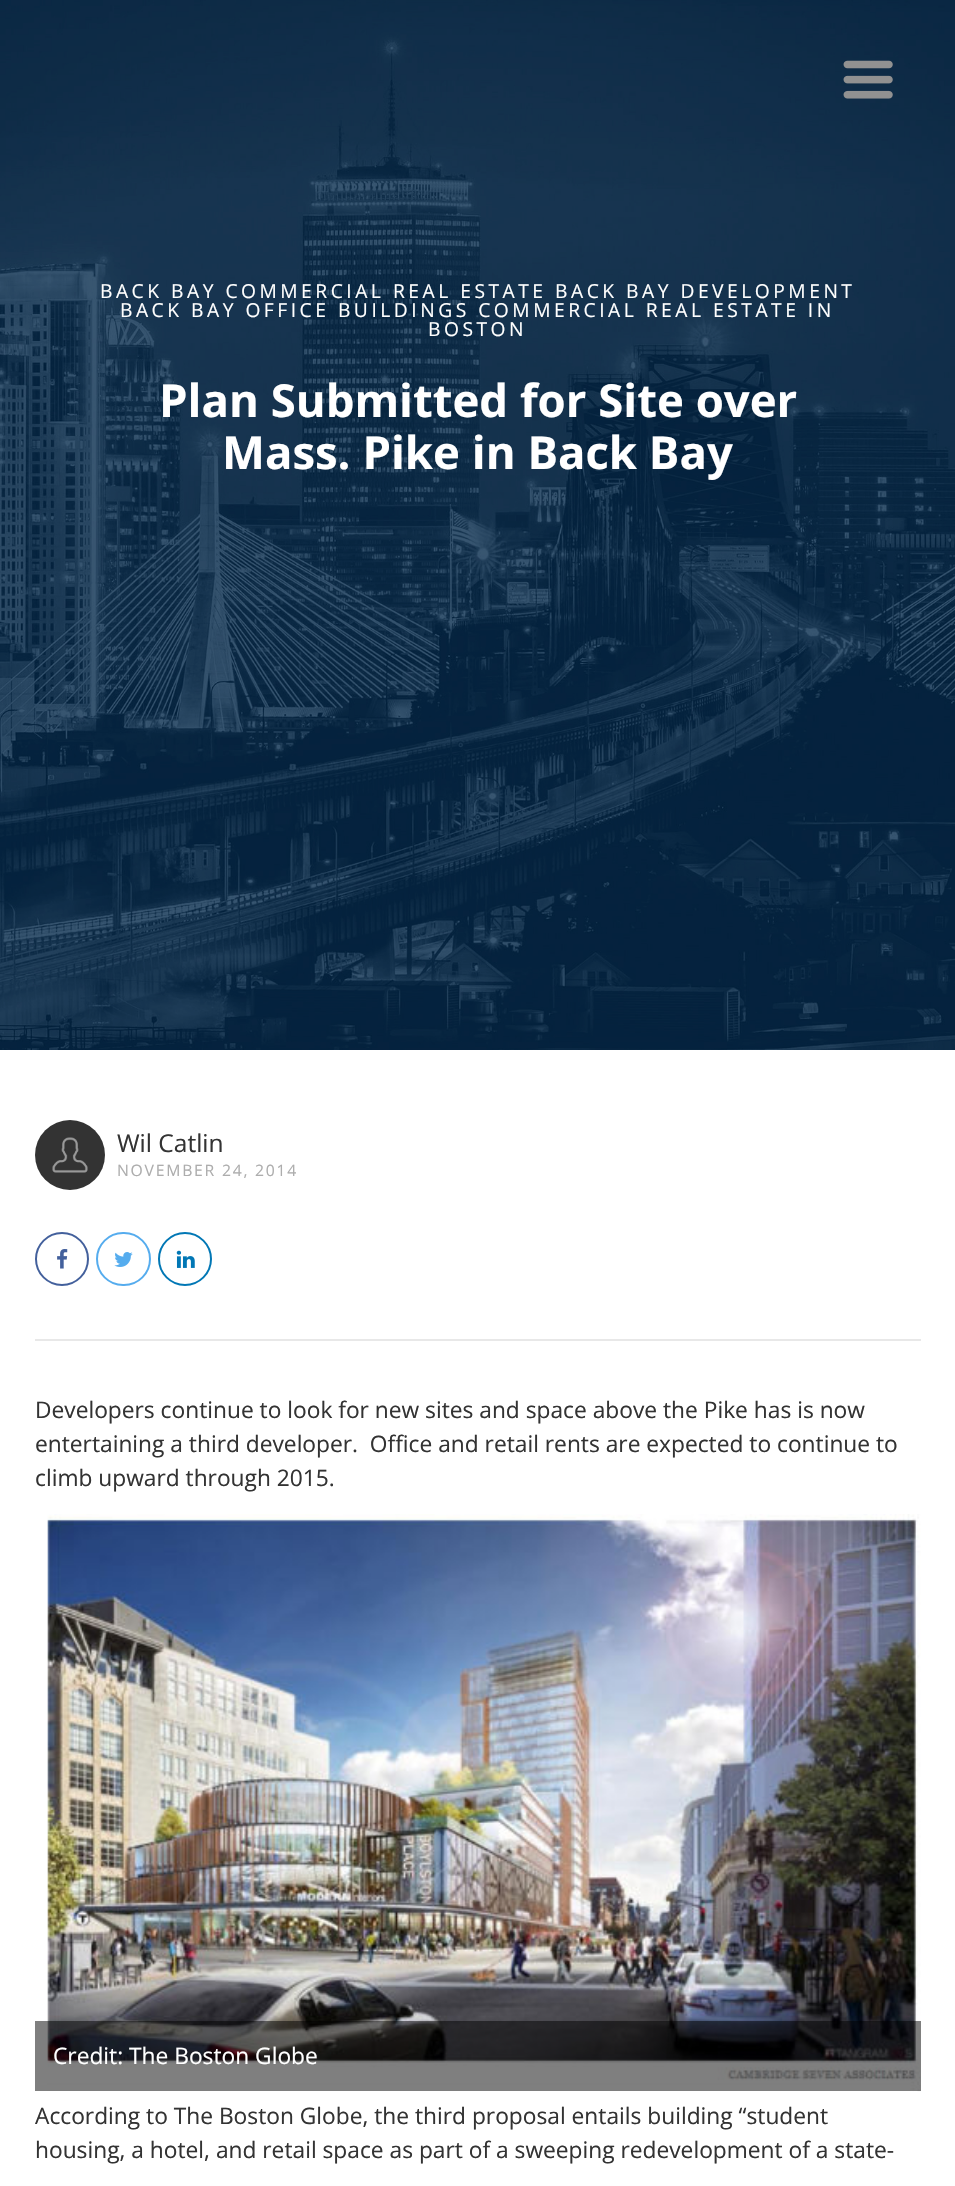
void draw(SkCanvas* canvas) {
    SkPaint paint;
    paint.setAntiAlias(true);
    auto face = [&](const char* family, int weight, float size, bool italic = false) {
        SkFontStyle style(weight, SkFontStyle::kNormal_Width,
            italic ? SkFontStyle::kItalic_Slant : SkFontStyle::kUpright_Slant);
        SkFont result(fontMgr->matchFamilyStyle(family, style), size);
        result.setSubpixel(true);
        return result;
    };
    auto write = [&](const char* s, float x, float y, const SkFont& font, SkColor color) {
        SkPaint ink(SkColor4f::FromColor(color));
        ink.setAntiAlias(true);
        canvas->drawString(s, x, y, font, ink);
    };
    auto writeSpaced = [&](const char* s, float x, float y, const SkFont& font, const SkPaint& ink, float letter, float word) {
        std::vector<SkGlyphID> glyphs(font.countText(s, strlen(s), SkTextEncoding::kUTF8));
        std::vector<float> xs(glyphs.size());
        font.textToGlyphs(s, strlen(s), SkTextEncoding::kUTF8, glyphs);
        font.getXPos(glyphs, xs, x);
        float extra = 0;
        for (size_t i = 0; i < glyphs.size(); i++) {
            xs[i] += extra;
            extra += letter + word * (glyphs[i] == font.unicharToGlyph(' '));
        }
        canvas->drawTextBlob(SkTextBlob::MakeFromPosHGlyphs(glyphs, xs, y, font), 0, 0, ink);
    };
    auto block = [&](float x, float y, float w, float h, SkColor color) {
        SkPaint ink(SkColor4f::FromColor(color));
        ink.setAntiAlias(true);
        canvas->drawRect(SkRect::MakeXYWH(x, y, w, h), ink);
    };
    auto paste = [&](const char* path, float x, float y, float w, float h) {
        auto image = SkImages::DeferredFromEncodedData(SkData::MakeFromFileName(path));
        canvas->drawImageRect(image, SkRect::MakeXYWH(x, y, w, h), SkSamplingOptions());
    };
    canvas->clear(SK_ColorWHITE);
    paste("pic2.png", 0, 0, 955, 1050);
    paste("pic1.png", 843, 60, 50, 39);
    auto kFont1 = face("Open Sans", 400, 19.25f);
    paint.setColor(SK_ColorWHITE);
    writeSpaced("BACK BAY COMMERCIAL REAL ESTATE BACK BAY DEVELOPMENT", 100, 298, kFont1, paint, 3.5f, 0);
    writeSpaced("BACK BAY OFFICE BUILDINGS COMMERCIAL REAL ESTATE IN", 120, 317, kFont1, paint, 3.5f, 0);
    writeSpaced("BOSTON", 428, 336, kFont1, paint, 3.5f, 0);
    auto kFont2 = face("Open Sans", 700, 45.5f);
    write("Plan Submitted for Site over", 159, 417, kFont2, SK_ColorWHITE);
    write("Mass. Pike in Back Bay", 222, 469, kFont2, SK_ColorWHITE);
    block(35, 1339, 886, 2, SkColorSetRGB(232, 232, 232));
    paste("pic3.png", 35, 1120, 70, 70);
    auto kFont3 = face("Open Sans", 400, 24.5f);
    write("Wil Catlin", 117, 1152, kFont3, SkColorSetRGB(51, 51, 51));
    auto kFont4 = face("Open Sans", 400, 15.75f);
    paint.setColor(SkColorSetRGB(173, 173, 173));
    writeSpaced("NOVEMBER 24, 2014", 117, 1176, kFont4, paint, 1.75f, 0);
    paint.setStyle(SkPaint::kStroke_Style);
    paint.setStrokeWidth(2);
    paint.setColor(SkColorSetRGB(67, 96, 156));
    canvas->drawCircle(62, 1259, 26, paint);
    paste("pic4.png", 57, 1249, 11, 20);
    paint.setColor(SkColorSetRGB(85, 172, 238));
    canvas->drawRoundRect(SkRect::MakeXYWH(97, 1233, 53, 52), 26, 26, paint);
    paste("pic5.png", 114, 1252, 19, 15);
    paint.setColor(SkColorSetRGB(1, 119, 181));
    canvas->drawCircle(185, 1259, 26, paint);
    paste("pic6.png", 176, 1250, 19, 18);
    auto kFont5 = face("Open Sans", 400, 22.75f);
    write("Developers continue to look for new sites and space above the Pike has is now", 35, 1418, kFont5, SkColorSetRGB(51, 51, 51));
    write("entertaining a third developer.  Office and retail rents are expected to continue to", 35, 1452, kFont5, SkColorSetRGB(51, 51, 51));
    write("climb upward through 2015.", 35, 1486, kFont5, SkColorSetRGB(51, 51, 51));
    paste("pic7.png", 47, 1514, 874, 578);
    block(35, 2021, 886, 70, SkColorSetARGB(128, 0, 0, 0));
    write("Credit: The Boston Globe", 53, 2064, kFont5, SK_ColorWHITE);
    write("According to The Boston Globe, the third proposal entails building “student", 35, 2124, kFont5, SkColorSetRGB(51, 51, 51));
    write("housing, a hotel, and retail space as part of a sweeping redevelopment of a state-", 35, 2158, kFont5, SkColorSetRGB(51, 51, 51));
}
